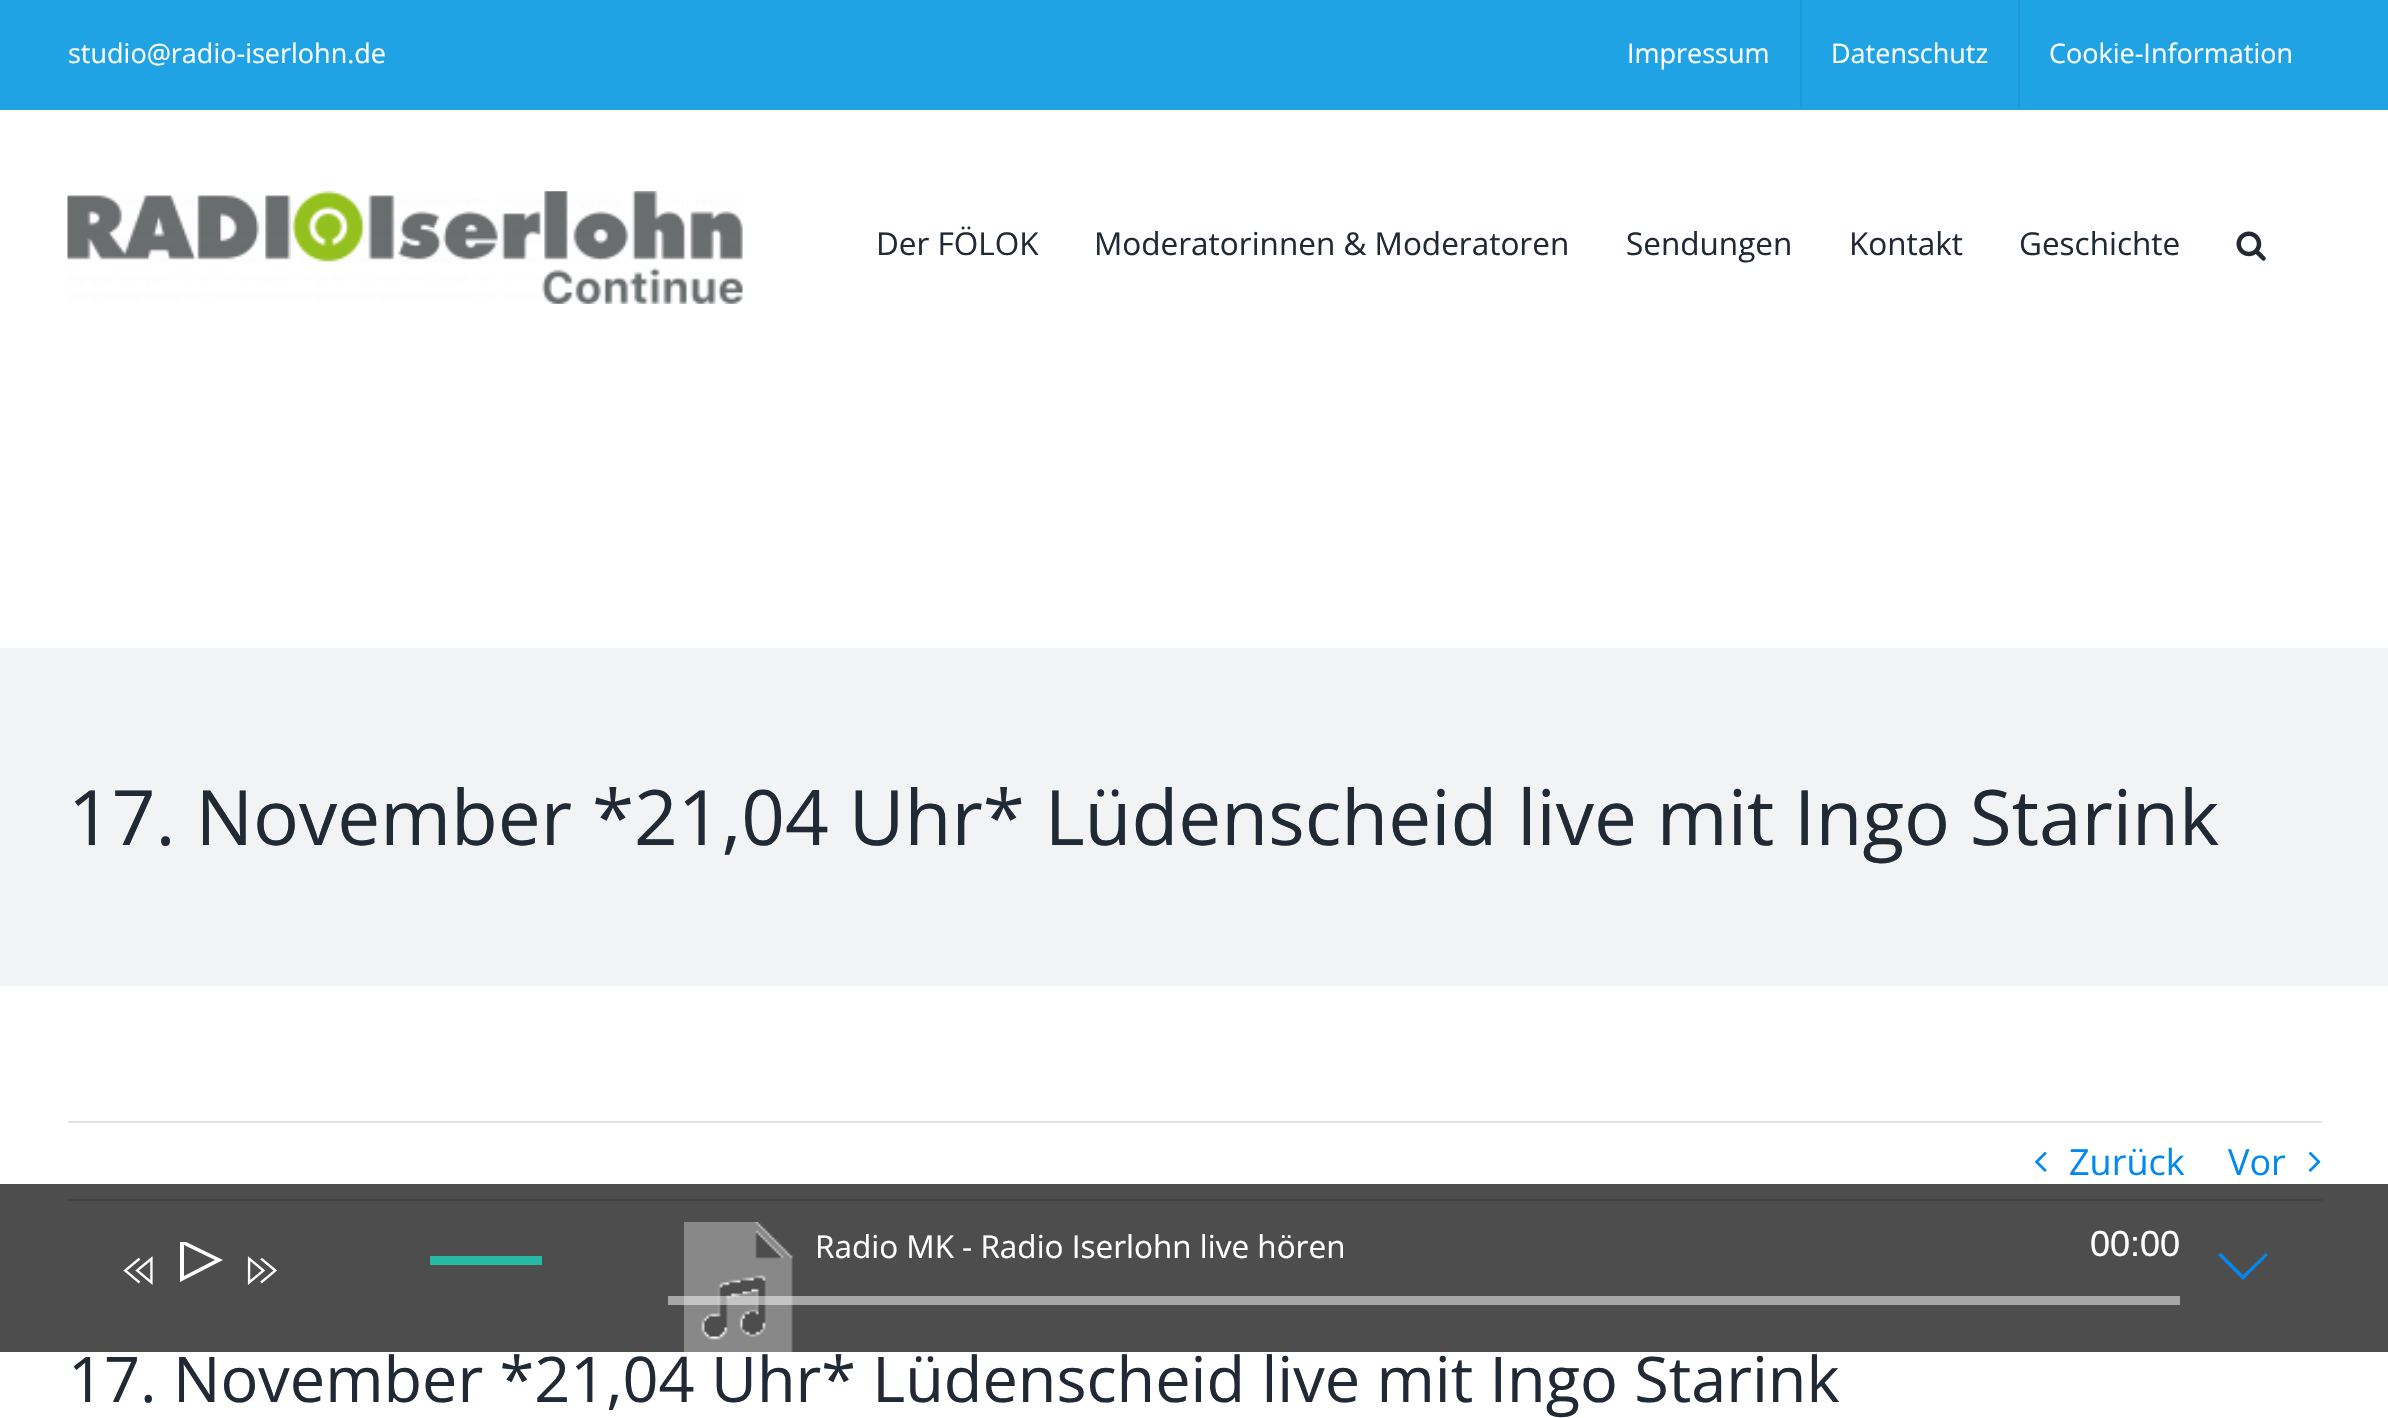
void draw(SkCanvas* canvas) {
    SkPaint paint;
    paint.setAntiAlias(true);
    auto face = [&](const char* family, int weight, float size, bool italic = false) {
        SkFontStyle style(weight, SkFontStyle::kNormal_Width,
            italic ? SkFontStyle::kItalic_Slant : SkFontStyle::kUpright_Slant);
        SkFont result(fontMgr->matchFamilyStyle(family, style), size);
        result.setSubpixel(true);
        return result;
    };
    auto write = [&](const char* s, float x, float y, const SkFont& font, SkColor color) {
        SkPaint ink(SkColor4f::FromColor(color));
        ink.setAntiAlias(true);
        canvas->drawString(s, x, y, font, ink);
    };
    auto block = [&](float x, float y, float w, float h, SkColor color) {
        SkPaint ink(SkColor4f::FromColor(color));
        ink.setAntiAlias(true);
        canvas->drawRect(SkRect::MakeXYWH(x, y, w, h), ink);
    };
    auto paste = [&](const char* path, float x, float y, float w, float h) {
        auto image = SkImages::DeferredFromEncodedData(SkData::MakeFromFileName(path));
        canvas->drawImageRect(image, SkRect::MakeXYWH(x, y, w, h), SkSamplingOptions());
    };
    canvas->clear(SK_ColorWHITE);
    block(0, 1184, 2388, 168, SkColorSetRGB(77, 77, 77));
    block(0, 0, 2388, 110, SkColorSetRGB(32, 163, 229));
    auto kFont1 = face("Open Sans", 400, 27);
    write("studio@radio-iserlohn.de", 68, 63, kFont1, SK_ColorWHITE);
    write("Impressum", 1627, 63, kFont1, SK_ColorWHITE);
    block(1800, 0, 2, 108, SkColorSetRGB(30, 153, 215));
    write("Datenschutz", 1831, 63, kFont1, SK_ColorWHITE);
    block(2018, 0, 2, 108, SkColorSetRGB(30, 153, 215));
    write("Cookie-Information", 2049, 63, kFont1, SK_ColorWHITE);
    paste("pic1.png", 67, 191, 676, 113);
    auto kFont2 = face("Open Sans", 400, 31.5f);
    write("Der FÖLOK", 876, 255, kFont2, SkColorSetRGB(33, 41, 52));
    write("Moderatorinnen & Moderatoren", 1094, 255, kFont2, SkColorSetRGB(33, 41, 52));
    write("Sendungen", 1626, 255, kFont2, SkColorSetRGB(33, 41, 52));
    write("Kontakt", 1849, 255, kFont2, SkColorSetRGB(33, 41, 52));
    write("Geschichte", 2019, 255, kFont2, SkColorSetRGB(33, 41, 52));
    paste("pic2.png", 2236, 231, 30, 30);
    block(0, 648, 2388, 338, SkColorSetRGB(242, 243, 245));
    auto kFont3 = face("Open Sans", 400, 76.5f);
    write("17. November *21,04 Uhr* Lüdenscheid live mit Ingo Starink", 68, 845, kFont3, SkColorSetRGB(33, 41, 52));
    block(68, 1121, 2254, 2, SkColorSetRGB(226, 226, 226));
    block(68, 1199, 2254, 2, SkColorSetRGB(68, 68, 68));
    paste("pic3.png", 2035, 1151, 12, 21);
    auto kFont4 = face("Open Sans", 400, 36);
    write("Zurück", 2069, 1175, kFont4, SkColorSetRGB(2, 136, 239));
    write("Vor", 2228, 1175, kFont4, SkColorSetRGB(2, 136, 239));
    paste("pic4.png", 2308, 1151, 13, 21);
    auto kFont5 = face("Open Sans", 400, 63);
    write("17. November *21,04 Uhr* Lüdenscheid live mit Ingo Starink", 68, 1402, kFont5, SkColorSetRGB(33, 41, 52));
    paste("pic5.png", 684, 1222, 109, 130);
    write("Radio MK - Radio Iserlohn live hören", 815, 1258, kFont2, SK_ColorWHITE);
    canvas->save();
    canvas->clipRect(SkRect::MakeXYWH(169, 1242, 56, 56));
    paint.setColor(SK_ColorWHITE);
    canvas->drawPath(SkPathBuilder().moveTo(180, 1239).lineTo(180, 1282).lineTo(223, 1260).close().moveTo(184, 1245).lineTo(215, 1260).lineTo(184, 1276).close().detach(), paint);
    canvas->restore();
    block(430, 1256, 112, 9, SkColorSetRGB(38, 185, 163));
    auto kFont6 = face("Liberation Sans", 400, 36);
    write("00:00", 2090, 1256, kFont6, SK_ColorWHITE);
    block(668, 1296, 1512, 9, SkColorSetARGB(128, 255, 255, 255));
    paste("pic6.png", 123, 1256, 30, 29);
    paste("pic7.png", 247, 1256, 30, 29);
    paint.setColor(SkColorSetRGB(2, 136, 239));
    canvas->drawPath(SkPathBuilder().moveTo(2268, 1255).lineTo(2243, 1280).lineTo(2218, 1255).lineTo(2221, 1253).lineTo(2243, 1275).lineTo(2266, 1253).close().detach(), paint);
}
